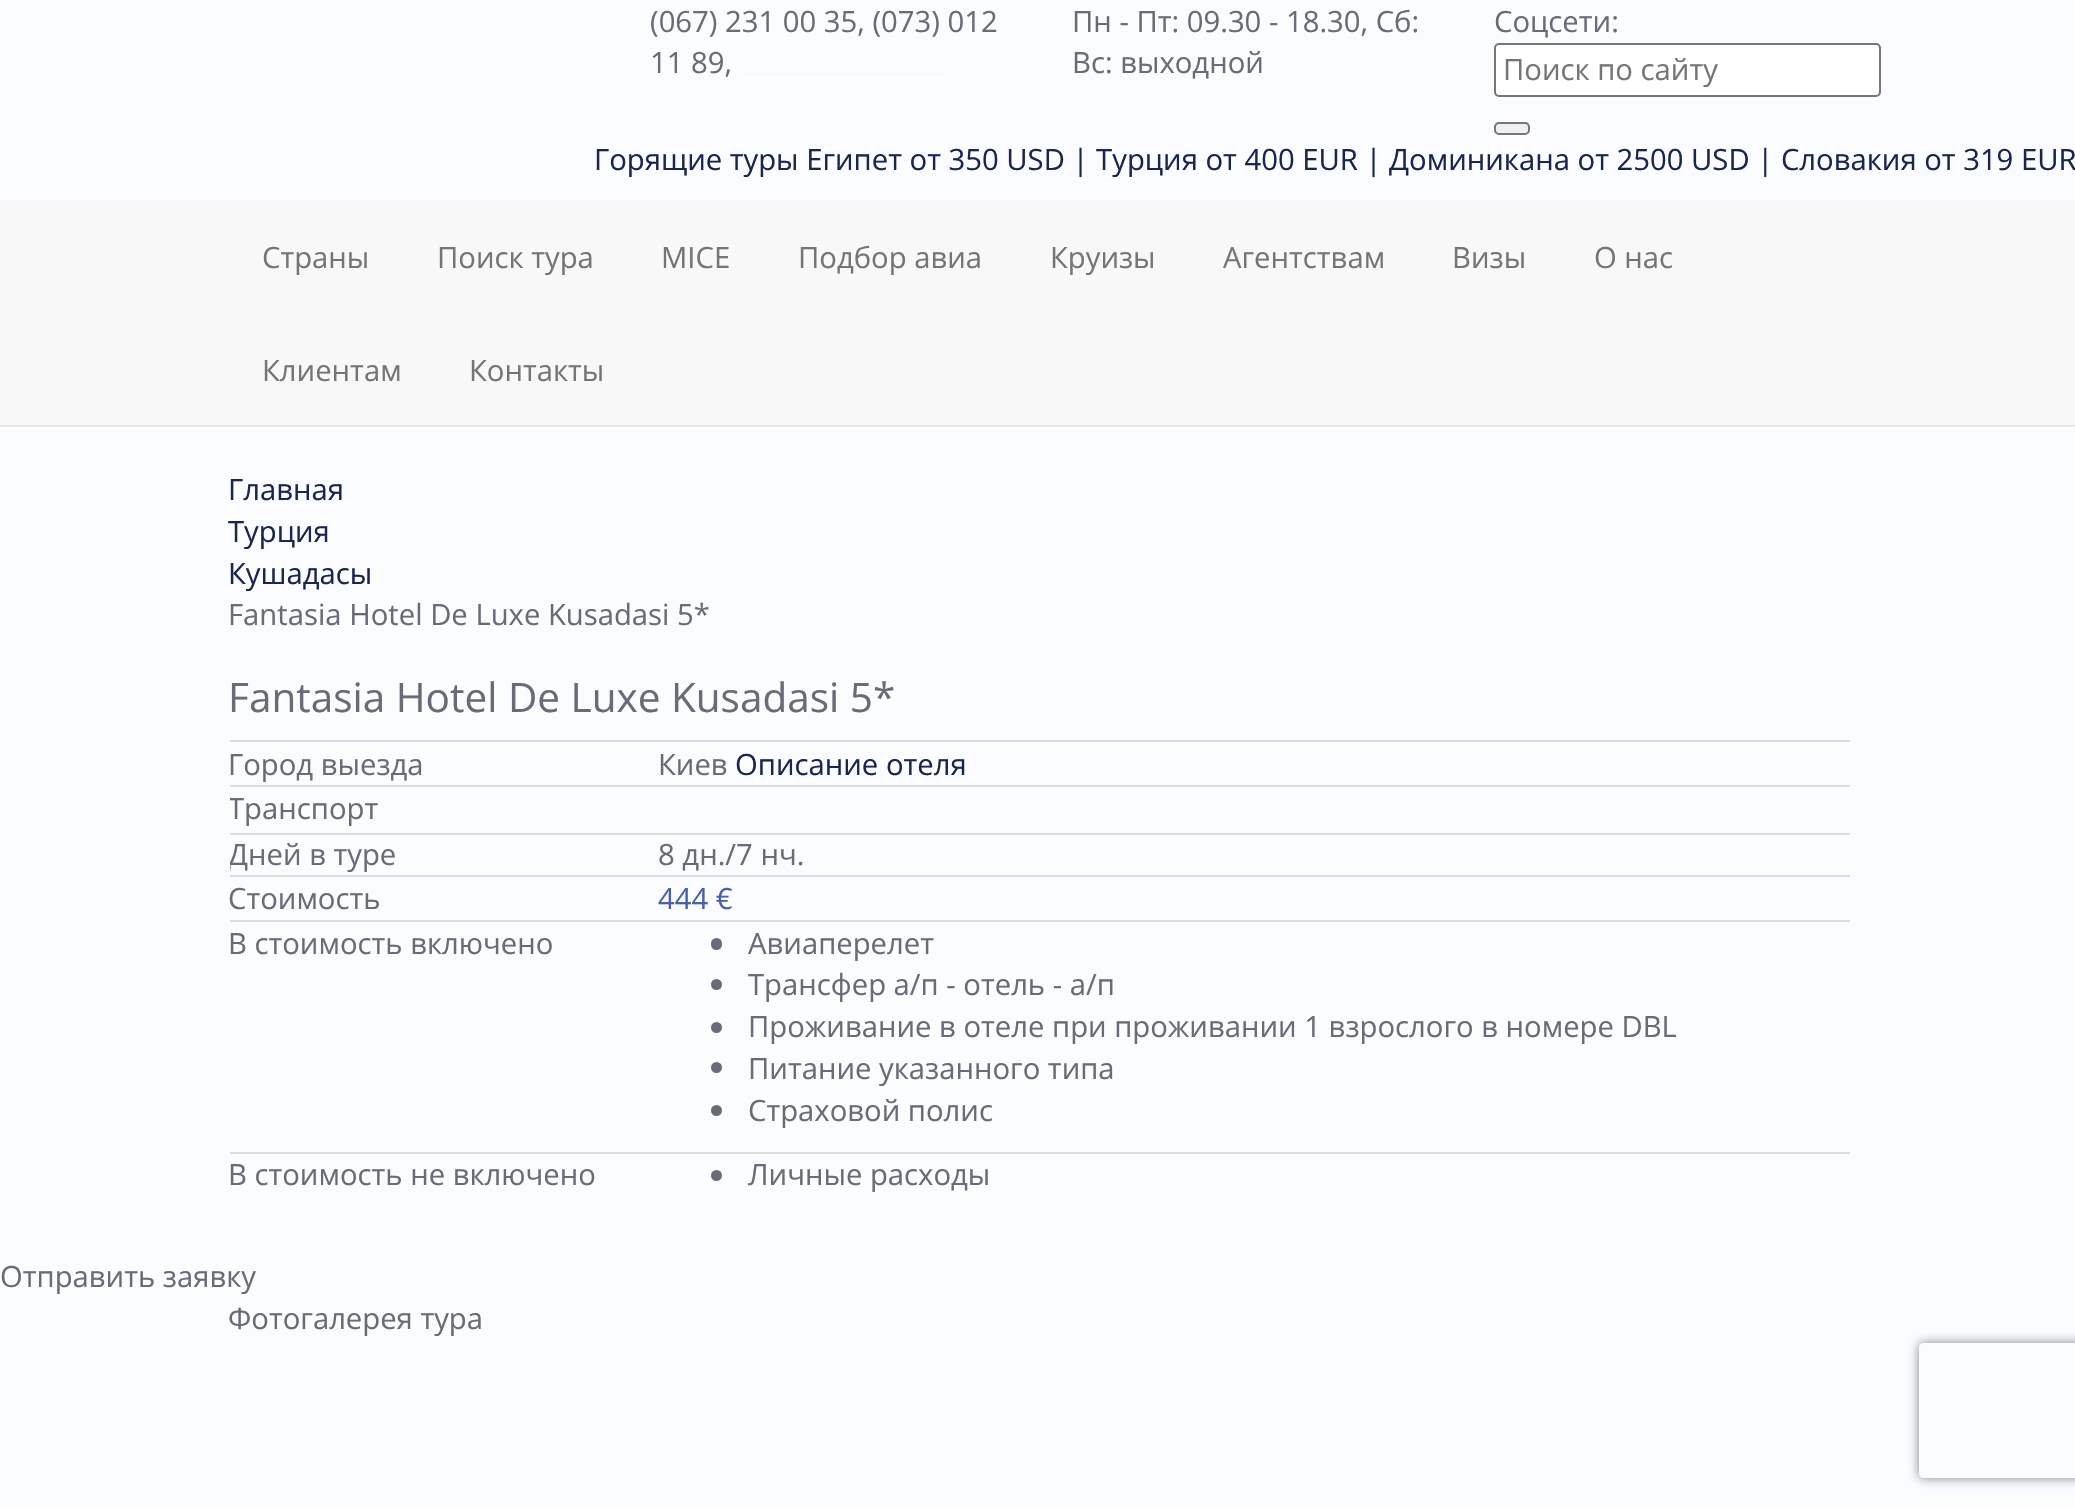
void draw(SkCanvas* canvas) {
    SkPaint paint;
    paint.setAntiAlias(true);
    auto face = [&](const char* family, int weight, float size, bool italic = false) {
        SkFontStyle style(weight, SkFontStyle::kNormal_Width,
            italic ? SkFontStyle::kItalic_Slant : SkFontStyle::kUpright_Slant);
        SkFont result(fontMgr->matchFamilyStyle(family, style), size);
        result.setSubpixel(true);
        return result;
    };
    auto write = [&](const char* s, float x, float y, const SkFont& font, SkColor color) {
        SkPaint ink(SkColor4f::FromColor(color));
        ink.setAntiAlias(true);
        canvas->drawString(s, x, y, font, ink);
    };
    auto block = [&](float x, float y, float w, float h, SkColor color) {
        SkPaint ink(SkColor4f::FromColor(color));
        ink.setAntiAlias(true);
        canvas->drawRect(SkRect::MakeXYWH(x, y, w, h), ink);
    };
    auto card = [&](float x, float y, float w, float h, float radius, SkColor color) {
        SkPaint ink(SkColor4f::FromColor(color));
        ink.setAntiAlias(true);
        canvas->drawRoundRect(SkRect::MakeXYWH(x, y, w, h), radius, radius, ink);
    };
    canvas->clear(SkColorSetRGB(251, 252, 255));
    auto kFont1 = face("Open Sans", 400, 29.25f);
    write("(067) 231 00 35, (073) 012", 650, 32, kFont1, SkColorSetRGB(104, 108, 120));
    write("11 89,", 650, 73, kFont1, SkColorSetRGB(104, 108, 120));
    block(740, 77, 207, 2, SK_ColorWHITE);
    write("Пн - Пт: 09.30 - 18.30, Сб:", 1072, 32, kFont1, SkColorSetRGB(104, 108, 120));
    write("Вс: выходной", 1072, 73, kFont1, SkColorSetRGB(104, 108, 120));
    write("Соцсети:", 1494, 32, kFont1, SkColorSetRGB(104, 108, 120));
    paint.setColor(SK_ColorWHITE);
    canvas->drawRoundRect(SkRect::MakeXYWH(1495, 44, 385, 52), 4, 4, paint);
    paint.setStyle(SkPaint::kStroke_Style);
    paint.setStrokeWidth(2);
    paint.setColor(SkColorSetRGB(118, 118, 118));
    canvas->drawRoundRect(SkRect::MakeXYWH(1495, 44, 385, 52), 4, 4, paint);
    write("Поиск по сайту", 1503, 80, kFont1, SkColorSetRGB(117, 117, 117));
    paint.setStyle(SkPaint::kFill_Style);
    paint.setColor(SkColorSetRGB(239, 239, 239));
    canvas->drawRoundRect(SkRect::MakeXYWH(1495, 123, 34, 11), 4, 4, paint);
    paint.setStyle(SkPaint::kStroke_Style);
    paint.setColor(SkColorSetRGB(118, 118, 118));
    canvas->drawRoundRect(SkRect::MakeXYWH(1495, 123, 34, 11), 4, 4, paint);
    write("Горящие туры Египет от 350 USD | Турция от 400 EUR | Доминикана от 2500 USD | Словакия от 319 EUR", 594, 170, kFont1, SkColorSetRGB(24, 38, 80));
    block(0, 200, 2075, 225, SkColorSetRGB(248, 248, 248));
    block(0, 425, 2075, 2, SkColorSetRGB(231, 231, 231));
    write("Страны", 262, 268, kFont1, SkColorSetRGB(117, 117, 117));
    write("Поиск тура", 437, 268, kFont1, SkColorSetRGB(117, 117, 117));
    write("MICE", 661, 268, kFont1, SkColorSetRGB(117, 117, 117));
    write("Подбор авиа", 798, 268, kFont1, SkColorSetRGB(117, 117, 117));
    write("Круизы", 1050, 268, kFont1, SkColorSetRGB(117, 117, 117));
    write("Агентствам", 1223, 268, kFont1, SkColorSetRGB(117, 117, 117));
    write("Визы", 1452, 268, kFont1, SkColorSetRGB(117, 117, 117));
    write("О нас", 1594, 268, kFont1, SkColorSetRGB(117, 117, 117));
    write("Клиентам", 262, 381, kFont1, SkColorSetRGB(117, 117, 117));
    write("Контакты", 469, 381, kFont1, SkColorSetRGB(117, 117, 117));
    write("Главная", 228, 500, kFont1, SkColorSetRGB(24, 38, 80));
    write("Турция", 228, 542, kFont1, SkColorSetRGB(24, 38, 80));
    write("Кушадасы", 228, 584, kFont1, SkColorSetRGB(24, 38, 80));
    write("Fantasia Hotel De Luxe Kusadasi 5*", 228, 625, kFont1, SkColorSetRGB(104, 108, 120));
    auto kFont2 = face("Open Sans", 400, 40.5f);
    write("Fantasia Hotel De Luxe Kusadasi 5*", 228, 712, kFont2, SkColorSetRGB(104, 108, 120));
    write("Город выезда", 228, 775, kFont1, SkColorSetRGB(104, 108, 120));
    block(230, 740, 1620, 2, SkColorSetRGB(221, 221, 221));
    write("Киев", 658, 775, kFont1, SkColorSetRGB(104, 108, 120));
    write("Описание отеля", 735, 775, kFont1, SkColorSetRGB(24, 38, 80));
    block(230, 785, 1620, 2, SkColorSetRGB(221, 221, 221));
    canvas->save();
    canvas->clipRect(SkRect::MakeXYWH(230, 740, 1620, 516));
    write("Транспорт", 228, 819, kFont1, SkColorSetRGB(104, 108, 120));
    write("Дней в туре", 228, 865, kFont1, SkColorSetRGB(104, 108, 120));
    canvas->restore();
    block(230, 833, 1620, 2, SkColorSetRGB(221, 221, 221));
    write("8 дн./7 нч.", 658, 865, kFont1, SkColorSetRGB(104, 108, 120));
    write("Стоимость", 228, 909, kFont1, SkColorSetRGB(104, 108, 120));
    block(230, 875, 1620, 2, SkColorSetRGB(221, 221, 221));
    write("444 €", 658, 909, kFont1, SkColorSetRGB(71, 96, 175));
    write("В стоимость включено", 228, 954, kFont1, SkColorSetRGB(104, 108, 120));
    block(230, 920, 1620, 2, SkColorSetRGB(221, 221, 221));
    card(711, 938, 11, 12, 5.5f, SkColorSetRGB(104, 108, 120));
    write("Авиаперелет", 748, 954, kFont1, SkColorSetRGB(104, 108, 120));
    paint.setStyle(SkPaint::kFill_Style);
    paint.setColor(SkColorSetRGB(104, 108, 120));
    canvas->drawCircle(716.5f, 984.5f, 5.5f, paint);
    write("Трансфер а/п - отель - а/п", 748, 995, kFont1, SkColorSetRGB(104, 108, 120));
    canvas->drawCircle(716.5f, 1027.5f, 5.5f, paint);
    write("Проживание в отеле при проживании 1 взрослого в номере DBL", 748, 1037, kFont1, SkColorSetRGB(104, 108, 120));
    canvas->drawCircle(716.5f, 1067.5f, 5.5f, paint);
    write("Питание указанного типа", 748, 1079, kFont1, SkColorSetRGB(104, 108, 120));
    canvas->drawCircle(716.5f, 1110.5f, 5.5f, paint);
    write("Страховой полис", 748, 1121, kFont1, SkColorSetRGB(104, 108, 120));
    write("В стоимость не включено", 228, 1185, kFont1, SkColorSetRGB(104, 108, 120));
    block(230, 1152, 1620, 2, SkColorSetRGB(221, 221, 221));
    canvas->drawCircle(716.5f, 1175.5f, 5.5f, paint);
    write("Личные расходы", 748, 1185, kFont1, SkColorSetRGB(104, 108, 120));
    write("Отправить заявку", 0, 1287, kFont1, SkColorSetRGB(104, 108, 120));
    write("Фотогалерея тура", 228, 1329, kFont1, SkColorSetRGB(104, 108, 120));
    canvas->save();
    canvas->clipPath(SkPathBuilder(SkPathFillType::kEvenOdd).moveTo(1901, 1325).lineTo(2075, 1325).lineTo(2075, 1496).lineTo(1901, 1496).close().moveTo(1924, 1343).lineTo(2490, 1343).cubicTo(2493, 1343, 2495, 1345, 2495, 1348).lineTo(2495, 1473).cubicTo(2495, 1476, 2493, 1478, 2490, 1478).lineTo(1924, 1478).cubicTo(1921, 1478, 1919, 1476, 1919, 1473).lineTo(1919, 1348).cubicTo(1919, 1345, 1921, 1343, 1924, 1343).close().detach(), true);
    paint.setColor(SkColorSetRGB(128, 128, 128));
    paint.setMaskFilter(SkMaskFilter::MakeBlur(kNormal_SkBlurStyle, 5.5f));
    canvas->drawRoundRect(SkRect::MakeXYWH(1919, 1343, 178, 135), 5, 5, paint);
    paint.setMaskFilter(nullptr);
    canvas->restore();
}
